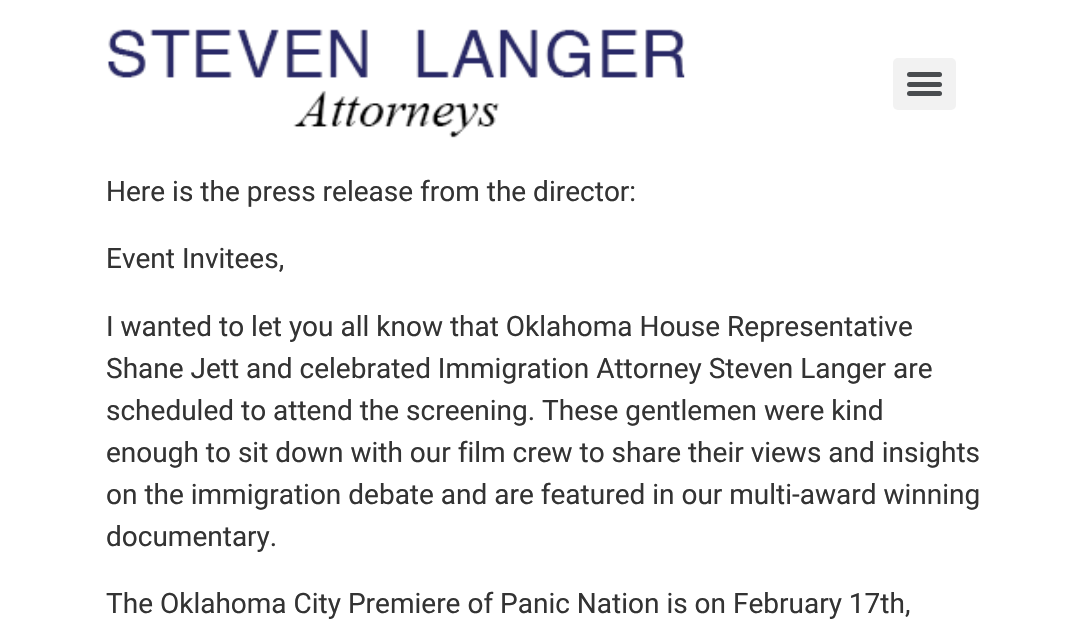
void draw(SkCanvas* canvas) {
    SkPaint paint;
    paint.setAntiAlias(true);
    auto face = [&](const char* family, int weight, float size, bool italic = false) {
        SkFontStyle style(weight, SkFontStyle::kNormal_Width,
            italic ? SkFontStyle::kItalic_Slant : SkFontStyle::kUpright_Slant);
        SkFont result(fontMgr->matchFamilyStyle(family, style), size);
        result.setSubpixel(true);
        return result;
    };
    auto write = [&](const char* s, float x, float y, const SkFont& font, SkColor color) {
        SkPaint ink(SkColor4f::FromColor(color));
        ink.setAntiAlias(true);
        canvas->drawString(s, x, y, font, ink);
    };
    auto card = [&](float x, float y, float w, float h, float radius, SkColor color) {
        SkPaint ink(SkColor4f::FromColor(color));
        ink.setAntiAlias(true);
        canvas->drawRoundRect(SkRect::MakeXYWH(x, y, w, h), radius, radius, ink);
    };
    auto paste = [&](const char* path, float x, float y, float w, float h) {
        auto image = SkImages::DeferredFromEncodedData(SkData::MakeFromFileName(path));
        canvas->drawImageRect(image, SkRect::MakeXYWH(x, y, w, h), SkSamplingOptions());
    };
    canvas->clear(SK_ColorWHITE);
    paste("pic1.png", 107, 29, 578, 109);
    card(893, 58, 63, 52, 5, SkColorSetRGB(242, 242, 242));
    card(907, 82, 35, 5, 2.5f, SkColorSetRGB(73, 76, 79));
    card(907, 72, 35, 5, 2.5f, SkColorSetRGB(73, 76, 79));
    card(907, 91, 35, 5, 2.5f, SkColorSetRGB(73, 76, 79));
    auto kFont1 = face("Roboto", 400, 28);
    write("Here is the press release from the director:", 106, 201, kFont1, SkColorSetRGB(51, 51, 51));
    write("Event Invitees,", 106, 268, kFont1, SkColorSetRGB(51, 51, 51));
    write("I wanted to let you all know that Oklahoma House Representative", 106, 336, kFont1, SkColorSetRGB(51, 51, 51));
    write("Shane Jett and celebrated Immigration Attorney Steven Langer are", 106, 378, kFont1, SkColorSetRGB(51, 51, 51));
    write("scheduled to attend the screening. These gentlemen were kind", 106, 420, kFont1, SkColorSetRGB(51, 51, 51));
    write("enough to sit down with our film crew to share their views and insights", 106, 462, kFont1, SkColorSetRGB(51, 51, 51));
    write("on the immigration debate and are featured in our multi-award winning", 106, 504, kFont1, SkColorSetRGB(51, 51, 51));
    write("documentary.", 106, 546, kFont1, SkColorSetRGB(51, 51, 51));
    write("The Oklahoma City Premiere of Panic Nation is on February 17th,", 106, 613, kFont1, SkColorSetRGB(51, 51, 51));
}
